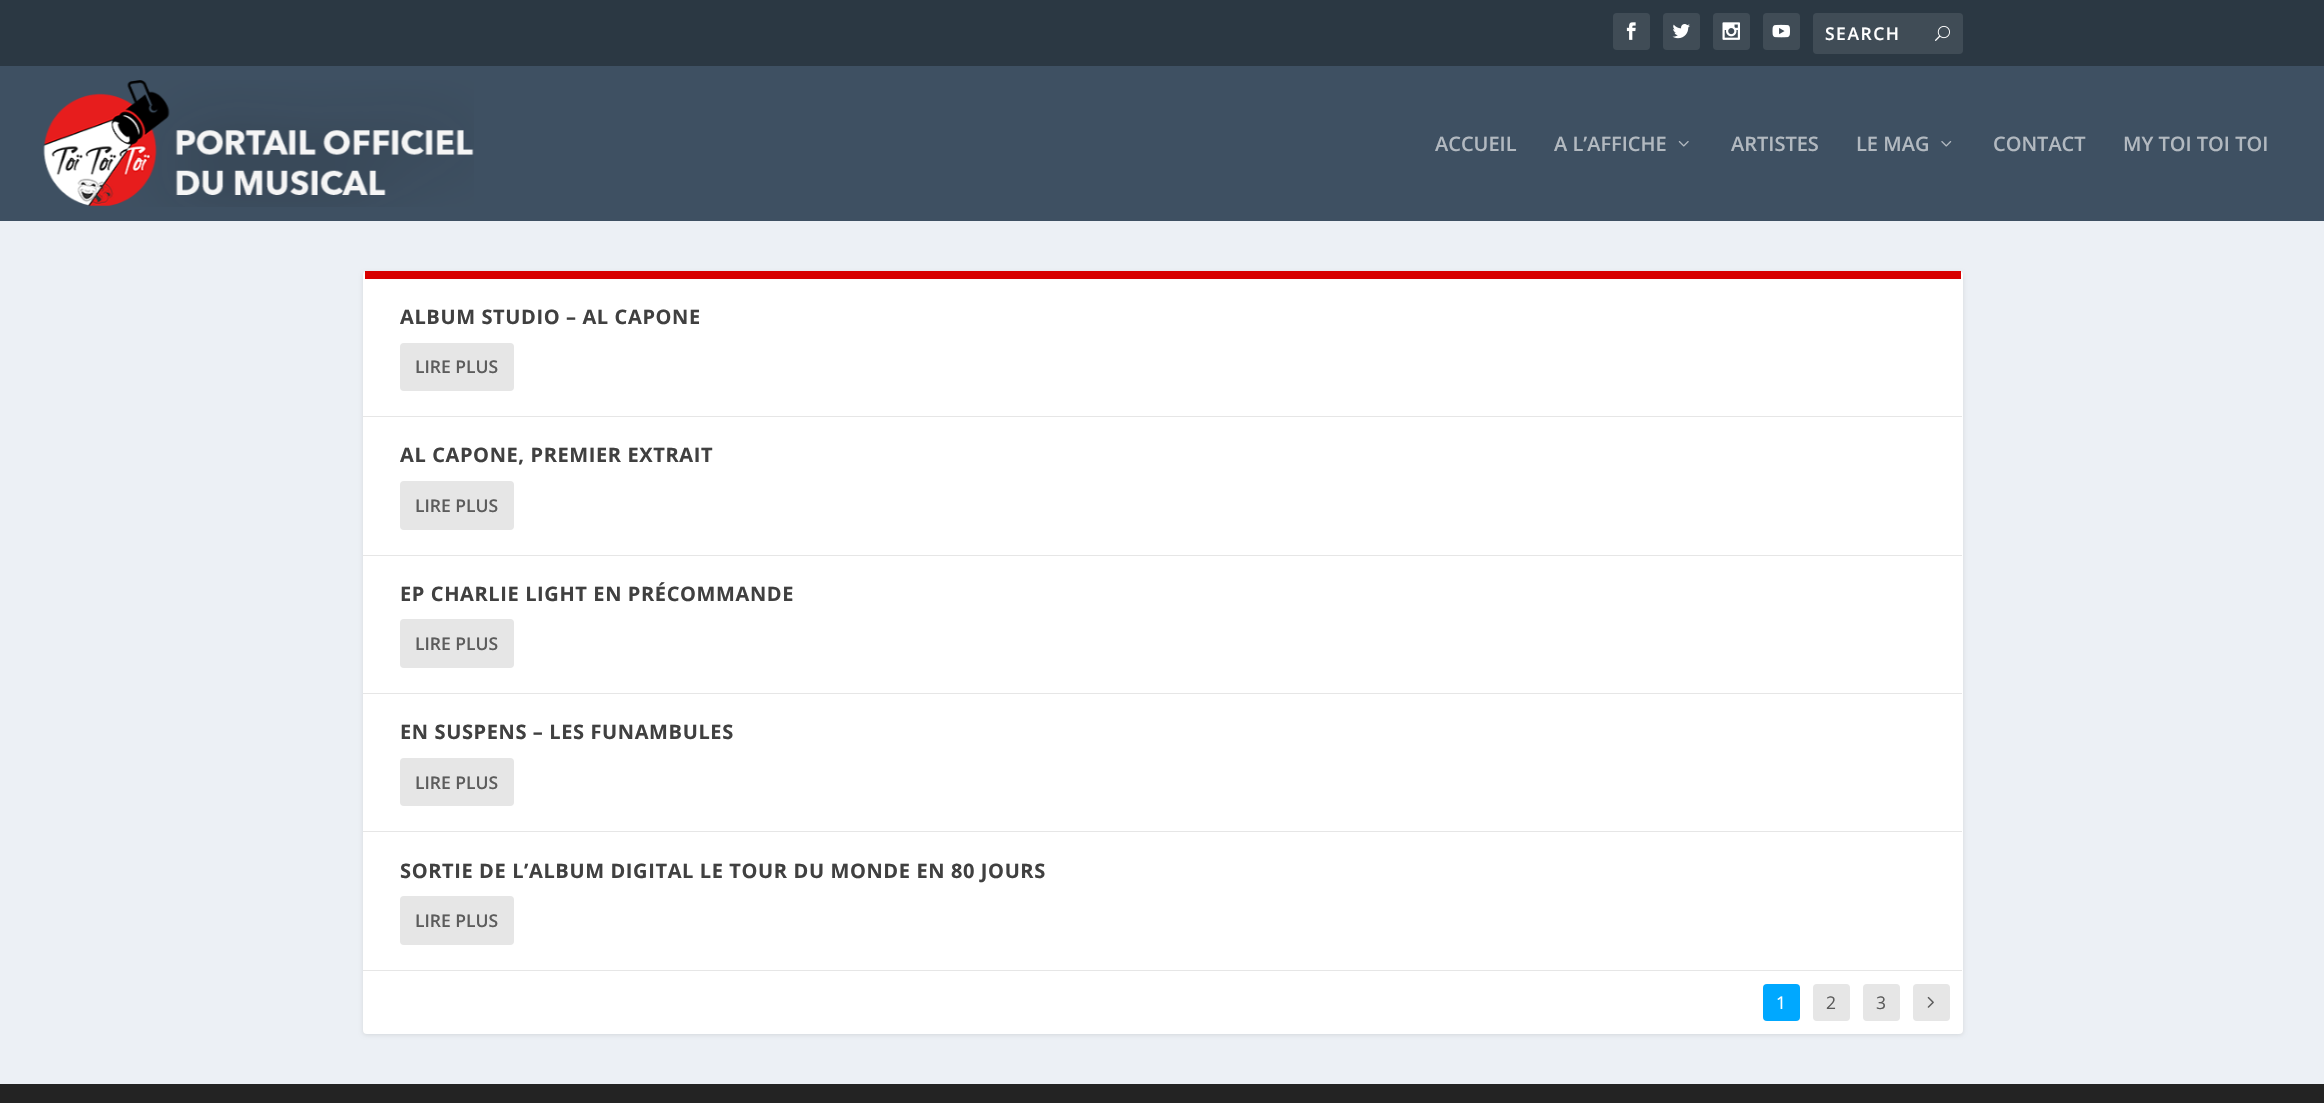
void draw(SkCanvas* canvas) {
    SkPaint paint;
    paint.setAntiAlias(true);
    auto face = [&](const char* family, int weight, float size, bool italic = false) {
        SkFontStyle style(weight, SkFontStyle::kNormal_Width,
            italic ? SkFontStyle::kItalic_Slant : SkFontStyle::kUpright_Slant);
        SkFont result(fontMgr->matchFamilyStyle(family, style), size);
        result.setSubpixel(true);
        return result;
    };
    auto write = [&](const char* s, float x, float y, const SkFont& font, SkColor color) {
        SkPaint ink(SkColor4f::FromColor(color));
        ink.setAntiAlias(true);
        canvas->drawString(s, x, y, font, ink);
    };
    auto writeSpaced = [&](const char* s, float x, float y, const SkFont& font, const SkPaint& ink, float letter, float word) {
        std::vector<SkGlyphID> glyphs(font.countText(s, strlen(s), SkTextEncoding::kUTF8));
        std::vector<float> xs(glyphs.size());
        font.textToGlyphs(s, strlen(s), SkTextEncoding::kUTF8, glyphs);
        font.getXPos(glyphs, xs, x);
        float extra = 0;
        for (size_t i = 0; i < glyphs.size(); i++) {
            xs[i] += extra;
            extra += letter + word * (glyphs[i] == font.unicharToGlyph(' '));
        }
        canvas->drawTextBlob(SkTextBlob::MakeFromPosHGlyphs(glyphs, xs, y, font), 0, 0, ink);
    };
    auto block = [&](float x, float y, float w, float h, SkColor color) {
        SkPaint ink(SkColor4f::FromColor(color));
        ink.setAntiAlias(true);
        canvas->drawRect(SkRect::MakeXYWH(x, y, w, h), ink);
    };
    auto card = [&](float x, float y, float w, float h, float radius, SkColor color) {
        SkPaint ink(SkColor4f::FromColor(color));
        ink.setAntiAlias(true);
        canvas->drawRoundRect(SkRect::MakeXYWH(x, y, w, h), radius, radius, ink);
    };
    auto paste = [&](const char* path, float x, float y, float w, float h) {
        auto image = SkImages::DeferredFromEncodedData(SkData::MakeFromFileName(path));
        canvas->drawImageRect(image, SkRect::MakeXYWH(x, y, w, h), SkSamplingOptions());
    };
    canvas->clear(SkColorSetRGB(236, 240, 245));
    block(0, 0, 2324, 66, SkColorSetRGB(43, 56, 67));
    card(1613, 13, 37, 37, 4, SkColorSetRGB(64, 76, 86));
    paste("pic1.png", 1626, 22, 10, 18);
    card(1663, 13, 37, 37, 4, SkColorSetRGB(64, 76, 86));
    paste("pic2.png", 1672, 24, 18, 15);
    card(1713, 13, 37, 37, 4, SkColorSetRGB(64, 76, 86));
    paste("pic3.png", 1722, 22, 18, 18);
    card(1763, 13, 37, 37, 4, SkColorSetRGB(64, 76, 86));
    paste("pic4.png", 1772, 24, 18, 14);
    card(1813, 13, 150, 41, 4, SkColorSetRGB(64, 76, 86));
    auto kFont1 = face("Open Sans", 600, 17.5f);
    paint.setColor(SK_ColorWHITE);
    writeSpaced("SEARCH", 1825, 40, kFont1, paint, 1.5f, 0);
    paste("pic5.png", 1935, 25, 15, 16);
    block(0, 66, 2324, 155, SkColorSetRGB(62, 80, 98));
    paste("pic6.png", 43, 80, 431, 127);
    auto kFont2 = face("Open Sans", 600, 20);
    write("ACCUEIL", 1435, 151, kFont2, SkColorSetRGB(178, 185, 192));
    write("A L’AFFICHE", 1554, 151, kFont2, SkColorSetRGB(178, 185, 192));
    paste("pic7.png", 1678, 141, 11, 6);
    write("ARTISTES", 1731, 151, kFont2, SkColorSetRGB(178, 185, 192));
    write("LE MAG", 1856, 151, kFont2, SkColorSetRGB(178, 185, 192));
    paste("pic8.png", 1941, 141, 11, 6);
    write("CONTACT", 1993, 151, kFont2, SkColorSetRGB(178, 185, 192));
    write("MY TOI TOI TOI", 2123, 151, kFont2, SkColorSetRGB(178, 185, 192));
    paint.setColor(SkColorSetARGB(26, 0, 0, 0));
    paint.setMaskFilter(SkMaskFilter::MakeBlur(kNormal_SkBlurStyle, 2));
    canvas->drawRoundRect(SkRect::MakeXYWH(363, 273, 1600, 762), 4, 4, paint);
    paint.setMaskFilter(nullptr);
    card(363, 271, 1600, 763, 4, SK_ColorWHITE);
    block(365, 271, 1596, 8, SkColorSetRGB(216, 0, 0));
    block(363, 416, 1599, 1, SkColorSetRGB(230, 230, 230));
    auto kFont3 = face("Open Sans", 700, 20);
    paint.setColor(SkColorSetRGB(64, 64, 64));
    writeSpaced("ALBUM STUDIO – AL CAPONE", 400, 324, kFont3, paint, 0.62f, 0);
    card(400, 343, 114, 48, 4, SkColorSetRGB(230, 230, 230));
    write("LIRE PLUS", 415, 373, kFont1, SkColorSetRGB(92, 92, 92));
    block(363, 555, 1599, 1, SkColorSetRGB(230, 230, 230));
    writeSpaced("AL CAPONE, PREMIER EXTRAIT", 400, 462, kFont3, paint, 0.62f, 0);
    card(400, 481, 114, 49, 4, SkColorSetRGB(230, 230, 230));
    write("LIRE PLUS", 415, 512, kFont1, SkColorSetRGB(92, 92, 92));
    block(363, 693, 1599, 1, SkColorSetRGB(230, 230, 230));
    writeSpaced("EP CHARLIE LIGHT EN PRÉCOMMANDE", 400, 601, kFont3, paint, 0.62f, 0);
    card(400, 619, 114, 49, 4, SkColorSetRGB(230, 230, 230));
    write("LIRE PLUS", 415, 650, kFont1, SkColorSetRGB(92, 92, 92));
    block(363, 831, 1599, 1, SkColorSetRGB(230, 230, 230));
    writeSpaced("EN SUSPENS – LES FUNAMBULES", 400, 739, kFont3, paint, 0.62f, 0);
    card(400, 758, 114, 48, 4, SkColorSetRGB(230, 230, 230));
    write("LIRE PLUS", 415, 789, kFont1, SkColorSetRGB(92, 92, 92));
    block(363, 970, 1599, 1, SkColorSetRGB(230, 230, 230));
    writeSpaced("SORTIE DE L’ALBUM DIGITAL LE TOUR DU MONDE EN 80 JOURS", 400, 878, kFont3, paint, 0.62f, 0);
    card(400, 896, 114, 49, 4, SkColorSetRGB(230, 230, 230));
    write("LIRE PLUS", 415, 927, kFont1, SkColorSetRGB(92, 92, 92));
    card(1763, 984, 37, 37, 4, SkColorSetRGB(0, 168, 255));
    auto kFont4 = face("Open Sans", 400, 17.5f);
    write("1", 1776, 1009, kFont4, SK_ColorWHITE);
    card(1813, 984, 37, 37, 4, SkColorSetRGB(230, 230, 230));
    write("2", 1826, 1009, kFont4, SkColorSetRGB(92, 92, 92));
    card(1863, 984, 37, 37, 4, SkColorSetRGB(230, 230, 230));
    write("3", 1876, 1009, kFont4, SkColorSetRGB(92, 92, 92));
    card(1913, 984, 37, 37, 4, SkColorSetRGB(230, 230, 230));
    paste("pic9.png", 1927, 996, 7, 12);
    block(0, 1084, 2324, 19, SkColorSetRGB(35, 35, 35));
}
